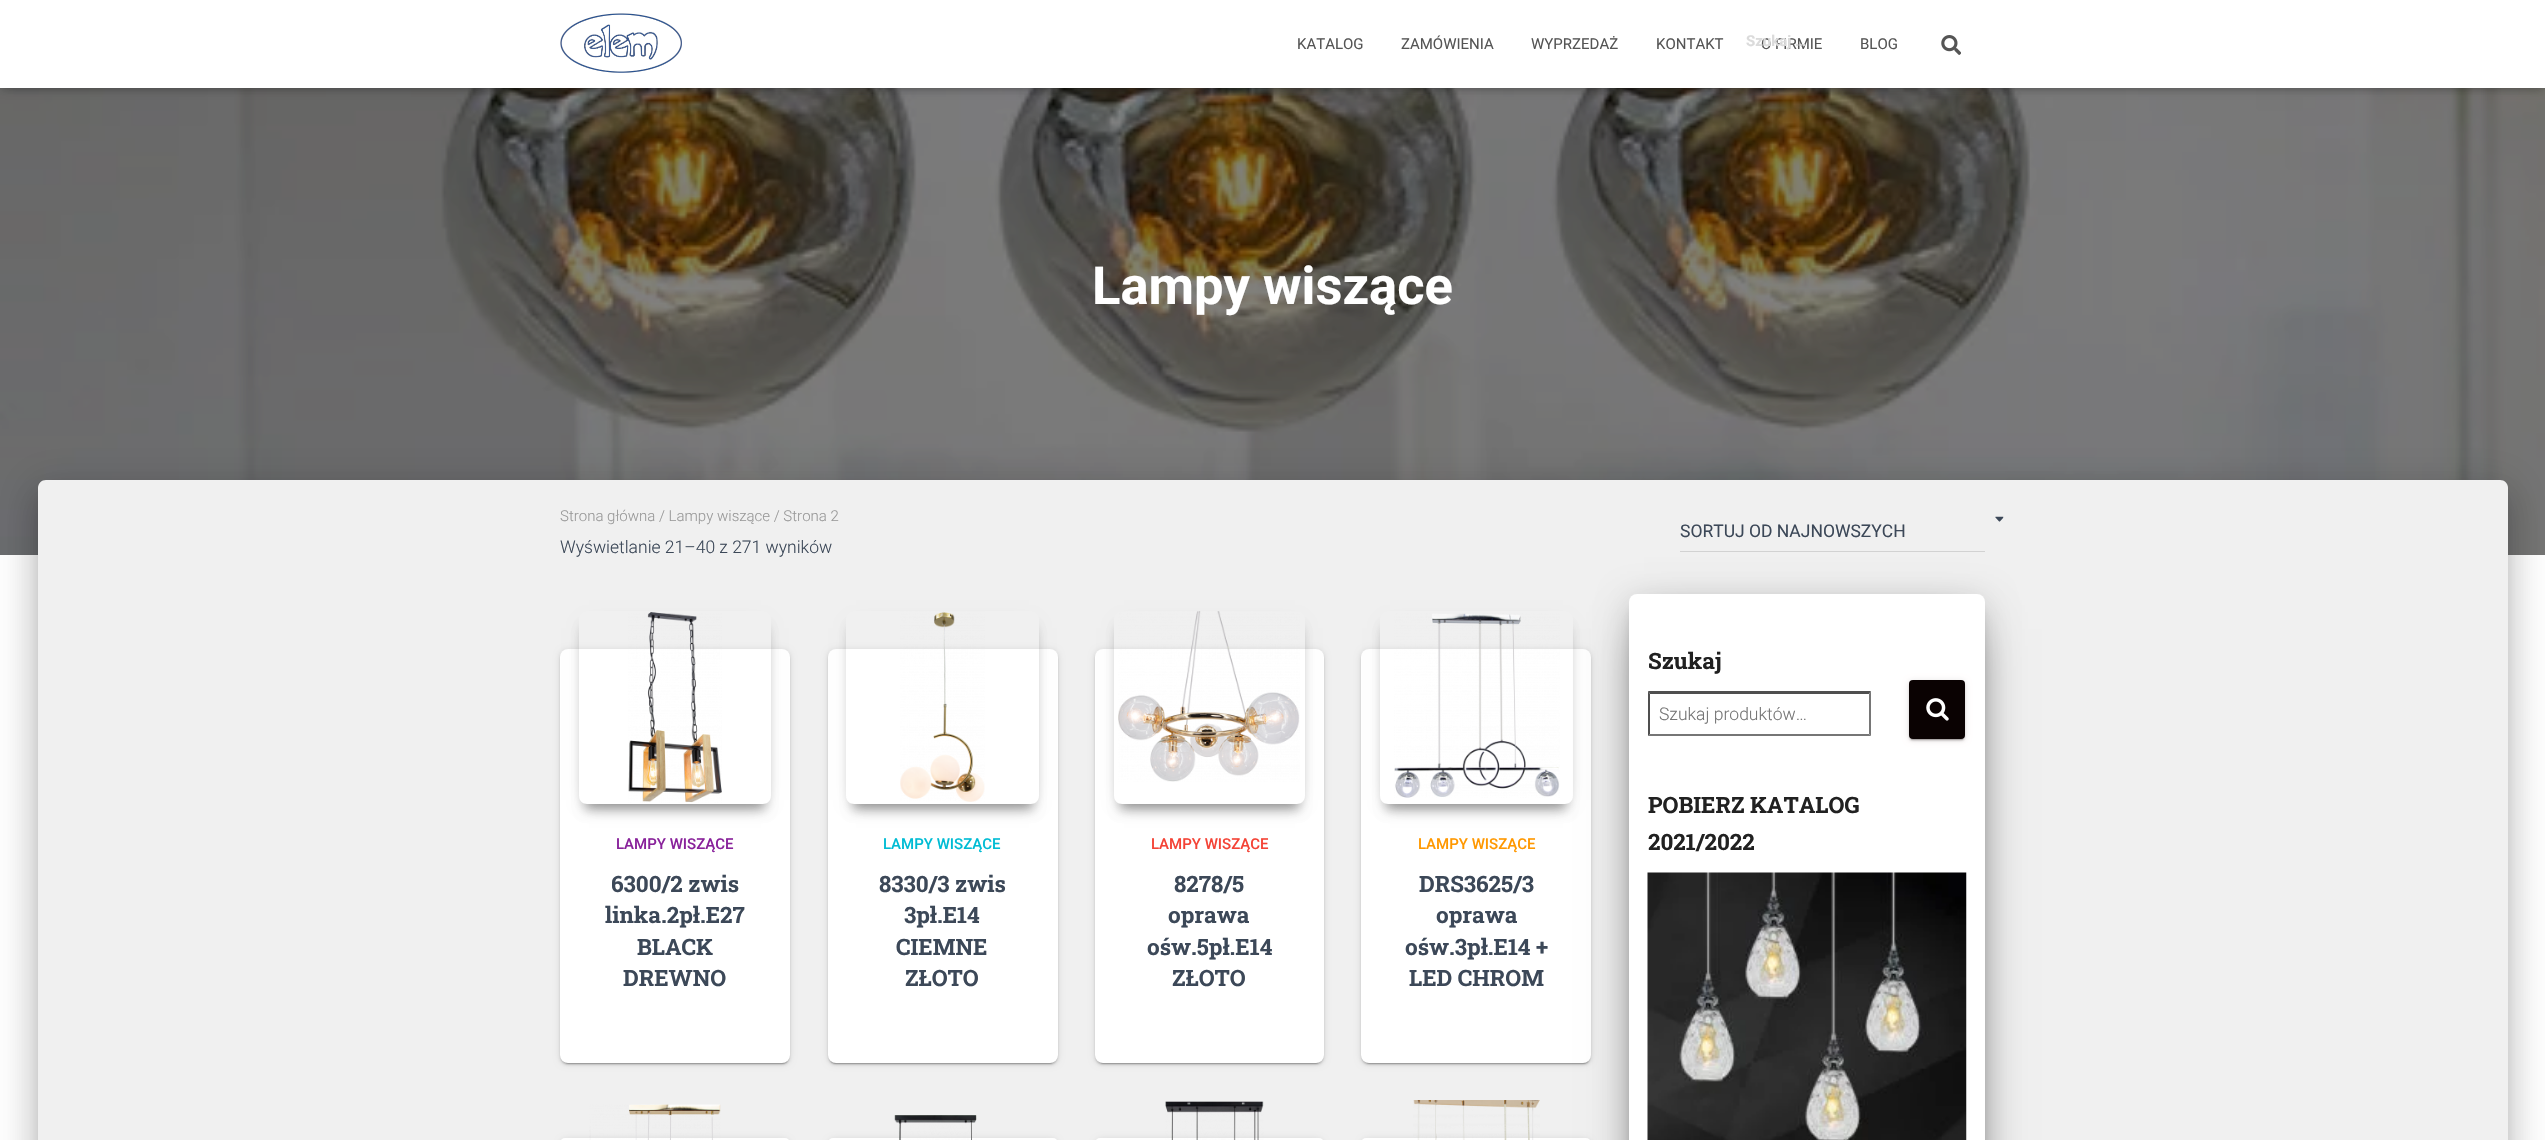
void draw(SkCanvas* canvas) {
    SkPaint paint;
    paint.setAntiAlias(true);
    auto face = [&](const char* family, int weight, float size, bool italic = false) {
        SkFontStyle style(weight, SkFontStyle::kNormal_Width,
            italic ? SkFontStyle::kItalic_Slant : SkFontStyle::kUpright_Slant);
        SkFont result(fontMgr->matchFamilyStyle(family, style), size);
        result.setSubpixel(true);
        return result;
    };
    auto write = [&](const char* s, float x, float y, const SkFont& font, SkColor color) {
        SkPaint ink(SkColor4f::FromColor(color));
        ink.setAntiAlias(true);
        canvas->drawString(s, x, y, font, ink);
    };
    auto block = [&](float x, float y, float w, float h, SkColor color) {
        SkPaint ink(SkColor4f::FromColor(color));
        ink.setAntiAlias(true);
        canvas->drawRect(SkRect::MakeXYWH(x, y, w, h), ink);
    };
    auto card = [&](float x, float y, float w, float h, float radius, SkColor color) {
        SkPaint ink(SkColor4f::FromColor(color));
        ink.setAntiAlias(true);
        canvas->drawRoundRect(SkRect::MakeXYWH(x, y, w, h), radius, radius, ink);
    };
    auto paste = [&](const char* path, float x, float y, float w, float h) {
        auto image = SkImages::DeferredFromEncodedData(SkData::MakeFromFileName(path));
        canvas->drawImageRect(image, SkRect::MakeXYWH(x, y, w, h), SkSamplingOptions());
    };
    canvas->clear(SK_ColorWHITE);
    paste("pic3.png", 0, 88, 2545, 467);
    paint.setColor(SkColorSetARGB(26, 0, 0, 0));
    paint.setMaskFilter(SkMaskFilter::MakeBlur(kNormal_SkBlurStyle, 3));
    canvas->drawRect(SkRect::MakeXYWH(3, 8, 2540, 82), paint);
    paint.setMaskFilter(nullptr);
    paint.setColor(SkColorSetARGB(31, 0, 0, 0));
    paint.setMaskFilter(SkMaskFilter::MakeBlur(kNormal_SkBlurStyle, 6));
    canvas->drawRect(SkRect::MakeXYWH(0, 1, 2545, 88), paint);
    paint.setMaskFilter(nullptr);
    paint.setColor(SkColorSetARGB(107, 0, 0, 0));
    paint.setMaskFilter(SkMaskFilter::MakeBlur(kNormal_SkBlurStyle, 6));
    canvas->drawRect(SkRect::MakeXYWH(8, 9, 2530, 72), paint);
    paint.setMaskFilter(nullptr);
    block(0, 0, 2545, 88, SK_ColorWHITE);
    paste("pic1.png", 560, 13, 122, 60);
    auto kFont1 = face("Roboto", 400, 15);
    write("KATALOG", 1297, 49, kFont1, SkColorSetRGB(85, 85, 85));
    write("ZAMÓWIENIA", 1401, 49, kFont1, SkColorSetRGB(85, 85, 85));
    write("WYPRZEDAŻ", 1531, 49, kFont1, SkColorSetRGB(85, 85, 85));
    write("KONTAKT", 1656, 49, kFont1, SkColorSetRGB(85, 85, 85));
    write("O FIRMIE", 1761, 49, kFont1, SkColorSetRGB(85, 85, 85));
    auto kFont2 = face("Roboto", 700, 15);
    write("Szukaj …", 1746, 46, kFont2, SkColorSetRGB(219, 219, 219));
    paste("pic2.png", 1941, 35, 20, 20);
    write("BLOG", 1860, 49, kFont1, SkColorSetRGB(85, 85, 85));
    auto kFont3 = face("Roboto", 700, 52.5f);
    write("Lampy wiszące", 1092, 304, kFont3, SK_ColorWHITE);
    paint.setColor(SkColorSetARGB(51, 0, 0, 0));
    paint.setMaskFilter(SkMaskFilter::MakeBlur(kNormal_SkBlurStyle, 6));
    canvas->drawRoundRect(SkRect::MakeXYWH(44, 496, 2457, 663), 1, 1, paint);
    paint.setMaskFilter(nullptr);
    paint.setColor(SkColorSetARGB(31, 0, 0, 0));
    paint.setMaskFilter(SkMaskFilter::MakeBlur(kNormal_SkBlurStyle, 19));
    canvas->drawRoundRect(SkRect::MakeXYWH(31, 481, 2483, 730), 14, 14, paint);
    paint.setMaskFilter(nullptr);
    paint.setColor(SkColorSetARGB(36, 0, 0, 0));
    paint.setMaskFilter(SkMaskFilter::MakeBlur(kNormal_SkBlurStyle, 15));
    canvas->drawRoundRect(SkRect::MakeXYWH(35, 498, 2475, 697), 10, 10, paint);
    paint.setMaskFilter(nullptr);
    paint.setColor(SkColorSetRGB(240, 240, 240));
    canvas->drawPath(SkPathBuilder().moveTo(46, 480).lineTo(2500, 480).cubicTo(2504.5f, 480, 2508, 483.5f, 2508, 488).lineTo(2508, 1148).lineTo(38, 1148).lineTo(38, 488).cubicTo(38, 483.5f, 41.5f, 480, 46, 480).close().detach(), paint);
    auto kFont4 = face("Roboto", 300, 15);
    write("Strona główna / Lampy wiszące / Strona 2", 560, 521, kFont4, SkColorSetRGB(153, 153, 153));
    auto kFont5 = face("Roboto", 300, 17.5f);
    write("Wyświetlanie 21–40 z 271 wyników", 560, 553, kFont5, SkColorSetRGB(60, 72, 88));
    paste("pic4.png", 1995, 516, 9, 6);
    block(1680, 551, 305, 1, SkColorSetRGB(210, 210, 210));
    auto kFont6 = face("Roboto", 400, 17.5f);
    write("SORTUJ OD NAJNOWSZYCH", 1680, 537, kFont6, SkColorSetRGB(60, 72, 88));
    paint.setColor(SkColorSetARGB(51, 0, 0, 0));
    paint.setMaskFilter(SkMaskFilter::MakeBlur(kNormal_SkBlurStyle, 6));
    canvas->drawRoundRect(SkRect::MakeXYWH(1635, 610, 344, 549), 1, 1, paint);
    paint.setMaskFilter(nullptr);
    paint.setColor(SkColorSetARGB(31, 0, 0, 0));
    paint.setMaskFilter(SkMaskFilter::MakeBlur(kNormal_SkBlurStyle, 3));
    canvas->drawRoundRect(SkRect::MakeXYWH(1361, 650, 230, 414), 8, 8, paint);
    paint.setMaskFilter(nullptr);
    paint.setColor(SkColorSetARGB(51, 0, 0, 0));
    paint.setMaskFilter(SkMaskFilter::MakeBlur(kNormal_SkBlurStyle, 0.5f));
    canvas->drawRoundRect(SkRect::MakeXYWH(1364, 655, 225, 409), 5, 5, paint);
    paint.setMaskFilter(nullptr);
    paint.setColor(SkColorSetARGB(36, 0, 0, 0));
    paint.setMaskFilter(SkMaskFilter::MakeBlur(kNormal_SkBlurStyle, 1));
    canvas->drawRoundRect(SkRect::MakeXYWH(1361, 651, 230, 414), 8, 8, paint);
    paint.setMaskFilter(nullptr);
    card(1361, 649, 230, 414, 8, SK_ColorWHITE);
    paint.setColor(SkColorSetARGB(31, 0, 0, 0));
    paint.setMaskFilter(SkMaskFilter::MakeBlur(kNormal_SkBlurStyle, 3));
    canvas->drawRoundRect(SkRect::MakeXYWH(1361, 1139, 230, 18), 8, 8, paint);
    paint.setMaskFilter(nullptr);
    card(1361, 1138, 230, 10, 8, SK_ColorWHITE);
    paint.setMaskFilter(SkMaskFilter::MakeBlur(kNormal_SkBlurStyle, 15.5f));
    canvas->drawRoundRect(SkRect::MakeXYWH(1629, 599, 356, 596), 8, 8, paint);
    paint.setMaskFilter(nullptr);
    paint.setColor(SkColorSetARGB(143, 0, 0, 0));
    paint.setMaskFilter(SkMaskFilter::MakeBlur(kNormal_SkBlurStyle, 24));
    canvas->drawRect(SkRect::MakeXYWH(1644, 629, 326, 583), paint);
    paint.setMaskFilter(nullptr);
    card(1629, 594, 356, 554, 8, SK_ColorWHITE);
    auto kFont7 = face("Roboto Slab", 700, 22.5f);
    write("Szukaj", 1648, 669, kFont7, SkColorSetRGB(33, 33, 33));
    paint.setColor(SkColorSetRGB(79, 79, 79));
    canvas->drawPath(SkPathBuilder().moveTo(1648, 691).lineTo(1871, 691).lineTo(1869, 694).lineTo(1650, 694).close().detach(), paint);
    paint.setColor(SkColorSetRGB(118, 118, 118));
    canvas->drawPath(SkPathBuilder().moveTo(1871, 691).lineTo(1871, 736).lineTo(1869, 734).lineTo(1869, 694).close().detach(), paint);
    canvas->drawPath(SkPathBuilder().moveTo(1871, 736).lineTo(1648, 736).lineTo(1650, 734).lineTo(1869, 734).close().detach(), paint);
    paint.setColor(SkColorSetRGB(79, 79, 79));
    canvas->drawPath(SkPathBuilder().moveTo(1648, 736).lineTo(1648, 691).lineTo(1650, 694).lineTo(1650, 734).close().detach(), paint);
    write("Szukaj produktów…", 1659, 720, kFont5, SkColorSetRGB(117, 117, 117));
    paint.setColor(SkColorSetARGB(31, 10, 2, 2));
    paint.setMaskFilter(SkMaskFilter::MakeBlur(kNormal_SkBlurStyle, 3));
    canvas->drawRoundRect(SkRect::MakeXYWH(1909, 681, 56, 59), 4, 4, paint);
    paint.setMaskFilter(nullptr);
    paint.setColor(SkColorSetARGB(51, 10, 2, 2));
    paint.setMaskFilter(SkMaskFilter::MakeBlur(kNormal_SkBlurStyle, 0.5f));
    canvas->drawRoundRect(SkRect::MakeXYWH(1911, 686, 52, 54), 1, 1, paint);
    paint.setMaskFilter(nullptr);
    paint.setColor(SkColorSetARGB(36, 10, 2, 2));
    paint.setMaskFilter(SkMaskFilter::MakeBlur(kNormal_SkBlurStyle, 1));
    canvas->drawRoundRect(SkRect::MakeXYWH(1909, 683, 56, 58), 4, 4, paint);
    paint.setMaskFilter(nullptr);
    card(1909, 680, 56, 59, 4, SkColorSetRGB(10, 2, 2));
    paste("pic5.png", 1926, 698, 23, 23);
    write("POBIERZ KATALOG", 1648, 813, kFont7, SkColorSetRGB(33, 33, 33));
    write("2021/2022", 1648, 850, kFont7, SkColorSetRGB(33, 33, 33));
    paste("pic6.png", 1647, 872, 320, 268);
    paint.setColor(SkColorSetARGB(31, 0, 0, 0));
    paint.setMaskFilter(SkMaskFilter::MakeBlur(kNormal_SkBlurStyle, 3));
    canvas->drawRoundRect(SkRect::MakeXYWH(560, 650, 230, 414), 8, 8, paint);
    paint.setMaskFilter(nullptr);
    paint.setColor(SkColorSetARGB(51, 0, 0, 0));
    paint.setMaskFilter(SkMaskFilter::MakeBlur(kNormal_SkBlurStyle, 0.5f));
    canvas->drawRoundRect(SkRect::MakeXYWH(563, 655, 225, 409), 5, 5, paint);
    paint.setMaskFilter(nullptr);
    paint.setColor(SkColorSetARGB(36, 0, 0, 0));
    paint.setMaskFilter(SkMaskFilter::MakeBlur(kNormal_SkBlurStyle, 1));
    canvas->drawRoundRect(SkRect::MakeXYWH(560, 651, 230, 414), 8, 8, paint);
    paint.setMaskFilter(nullptr);
    card(560, 649, 230, 414, 8, SK_ColorWHITE);
    canvas->save();
    canvas->clipPath(SkPathBuilder(SkPathFillType::kEvenOdd).moveTo(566, 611).lineTo(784, 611).lineTo(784, 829).lineTo(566, 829).close().moveTo(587, 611).lineTo(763, 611).cubicTo(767.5f, 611, 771, 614.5f, 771, 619).lineTo(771, 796).cubicTo(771, 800.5f, 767.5f, 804, 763, 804).lineTo(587, 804).cubicTo(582.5f, 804, 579, 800.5f, 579, 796).lineTo(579, 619).cubicTo(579, 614.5f, 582.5f, 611, 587, 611).close().detach(), true);
    paint.setColor(SkColorSetARGB(51, 0, 0, 0));
    paint.setMaskFilter(SkMaskFilter::MakeBlur(kNormal_SkBlurStyle, 6));
    canvas->drawRoundRect(SkRect::MakeXYWH(585, 630, 180, 180), 1, 1, paint);
    paint.setMaskFilter(nullptr);
    canvas->restore();
    canvas->save();
    canvas->clipPath(SkPathBuilder(SkPathFillType::kEvenOdd).moveTo(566, 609).lineTo(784, 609).lineTo(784, 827).lineTo(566, 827).close().moveTo(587, 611).lineTo(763, 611).cubicTo(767.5f, 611, 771, 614.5f, 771, 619).lineTo(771, 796).cubicTo(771, 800.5f, 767.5f, 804, 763, 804).lineTo(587, 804).cubicTo(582.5f, 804, 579, 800.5f, 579, 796).lineTo(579, 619).cubicTo(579, 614.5f, 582.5f, 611, 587, 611).close().detach(), true);
    paint.setMaskFilter(SkMaskFilter::MakeBlur(kNormal_SkBlurStyle, 6));
    canvas->drawRoundRect(SkRect::MakeXYWH(585, 628, 180, 180), 1, 1, paint);
    paint.setMaskFilter(nullptr);
    canvas->restore();
    canvas->save();
    canvas->clipPath(SkPathBuilder(SkPathFillType::kEvenOdd).moveTo(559, 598).lineTo(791, 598).lineTo(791, 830).lineTo(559, 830).close().moveTo(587, 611).lineTo(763, 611).cubicTo(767.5f, 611, 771, 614.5f, 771, 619).lineTo(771, 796).cubicTo(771, 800.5f, 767.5f, 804, 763, 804).lineTo(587, 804).cubicTo(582.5f, 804, 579, 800.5f, 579, 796).lineTo(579, 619).cubicTo(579, 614.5f, 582.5f, 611, 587, 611).close().detach(), true);
    paint.setColor(SkColorSetARGB(61, 0, 0, 0));
    paint.setMaskFilter(SkMaskFilter::MakeBlur(kNormal_SkBlurStyle, 9.5f));
    canvas->drawRect(SkRect::MakeXYWH(589, 628, 172, 172), paint);
    paint.setMaskFilter(nullptr);
    canvas->restore();
    paste("pic7.png", 628, 612, 94, 191);
    auto kFont8 = face("Roboto", 500, 15);
    write("LAMPY WISZĄCE", 616, 849, kFont8, SkColorSetRGB(137, 34, 155));
    write("6300/2 zwis", 611, 892, kFont7, SkColorSetRGB(60, 72, 88));
    write("linka.2pł.E27", 605, 923, kFont7, SkColorSetRGB(60, 72, 88));
    write("BLACK", 637, 955, kFont7, SkColorSetRGB(60, 72, 88));
    write("DREWNO", 623, 986, kFont7, SkColorSetRGB(60, 72, 88));
    paint.setColor(SkColorSetARGB(31, 0, 0, 0));
    paint.setMaskFilter(SkMaskFilter::MakeBlur(kNormal_SkBlurStyle, 3));
    canvas->drawRoundRect(SkRect::MakeXYWH(828, 650, 230, 414), 8, 8, paint);
    paint.setMaskFilter(nullptr);
    paint.setColor(SkColorSetARGB(51, 0, 0, 0));
    paint.setMaskFilter(SkMaskFilter::MakeBlur(kNormal_SkBlurStyle, 0.5f));
    canvas->drawRoundRect(SkRect::MakeXYWH(830, 655, 225, 409), 5, 5, paint);
    paint.setMaskFilter(nullptr);
    paint.setColor(SkColorSetARGB(36, 0, 0, 0));
    paint.setMaskFilter(SkMaskFilter::MakeBlur(kNormal_SkBlurStyle, 1));
    canvas->drawRoundRect(SkRect::MakeXYWH(828, 651, 230, 414), 8, 8, paint);
    paint.setMaskFilter(nullptr);
    card(828, 649, 230, 414, 8, SK_ColorWHITE);
    canvas->save();
    canvas->clipPath(SkPathBuilder(SkPathFillType::kEvenOdd).moveTo(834, 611).lineTo(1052, 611).lineTo(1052, 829).lineTo(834, 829).close().moveTo(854, 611).lineTo(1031, 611).cubicTo(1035.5f, 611, 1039, 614.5f, 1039, 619).lineTo(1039, 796).cubicTo(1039, 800.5f, 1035.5f, 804, 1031, 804).lineTo(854, 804).cubicTo(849.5f, 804, 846, 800.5f, 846, 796).lineTo(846, 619).cubicTo(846, 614.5f, 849.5f, 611, 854, 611).close().detach(), true);
    paint.setColor(SkColorSetARGB(51, 0, 0, 0));
    paint.setMaskFilter(SkMaskFilter::MakeBlur(kNormal_SkBlurStyle, 6));
    canvas->drawRoundRect(SkRect::MakeXYWH(853, 630, 180, 180), 1, 1, paint);
    paint.setMaskFilter(nullptr);
    canvas->restore();
    canvas->save();
    canvas->clipPath(SkPathBuilder(SkPathFillType::kEvenOdd).moveTo(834, 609).lineTo(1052, 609).lineTo(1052, 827).lineTo(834, 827).close().moveTo(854, 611).lineTo(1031, 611).cubicTo(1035.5f, 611, 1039, 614.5f, 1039, 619).lineTo(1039, 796).cubicTo(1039, 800.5f, 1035.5f, 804, 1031, 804).lineTo(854, 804).cubicTo(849.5f, 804, 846, 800.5f, 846, 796).lineTo(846, 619).cubicTo(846, 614.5f, 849.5f, 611, 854, 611).close().detach(), true);
    paint.setMaskFilter(SkMaskFilter::MakeBlur(kNormal_SkBlurStyle, 6));
    canvas->drawRoundRect(SkRect::MakeXYWH(853, 628, 180, 180), 1, 1, paint);
    paint.setMaskFilter(nullptr);
    canvas->restore();
    canvas->save();
    canvas->clipPath(SkPathBuilder(SkPathFillType::kEvenOdd).moveTo(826, 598).lineTo(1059, 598).lineTo(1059, 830).lineTo(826, 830).close().moveTo(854, 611).lineTo(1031, 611).cubicTo(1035.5f, 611, 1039, 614.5f, 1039, 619).lineTo(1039, 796).cubicTo(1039, 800.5f, 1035.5f, 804, 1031, 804).lineTo(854, 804).cubicTo(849.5f, 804, 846, 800.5f, 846, 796).lineTo(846, 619).cubicTo(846, 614.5f, 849.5f, 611, 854, 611).close().detach(), true);
    paint.setColor(SkColorSetARGB(61, 0, 0, 0));
    paint.setMaskFilter(SkMaskFilter::MakeBlur(kNormal_SkBlurStyle, 9.5f));
    canvas->drawRect(SkRect::MakeXYWH(856, 628, 173, 172), paint);
    paint.setMaskFilter(nullptr);
    canvas->restore();
    paste("pic8.png", 900, 611, 85, 191);
    write("LAMPY WISZĄCE", 883, 849, kFont8, SkColorSetRGB(0, 188, 212));
    write("8330/3 zwis", 879, 892, kFont7, SkColorSetRGB(60, 72, 88));
    write("3pł.E14", 904, 923, kFont7, SkColorSetRGB(60, 72, 88));
    write("CIEMNE", 896, 955, kFont7, SkColorSetRGB(60, 72, 88));
    write("ZŁOTO", 905, 986, kFont7, SkColorSetRGB(60, 72, 88));
    paint.setColor(SkColorSetARGB(31, 0, 0, 0));
    paint.setMaskFilter(SkMaskFilter::MakeBlur(kNormal_SkBlurStyle, 3));
    canvas->drawRoundRect(SkRect::MakeXYWH(1095, 650, 229, 414), 8, 8, paint);
    paint.setMaskFilter(nullptr);
    paint.setColor(SkColorSetARGB(51, 0, 0, 0));
    paint.setMaskFilter(SkMaskFilter::MakeBlur(kNormal_SkBlurStyle, 0.5f));
    canvas->drawRoundRect(SkRect::MakeXYWH(1098, 655, 223, 409), 5, 5, paint);
    paint.setMaskFilter(nullptr);
    paint.setColor(SkColorSetARGB(36, 0, 0, 0));
    paint.setMaskFilter(SkMaskFilter::MakeBlur(kNormal_SkBlurStyle, 1));
    canvas->drawRoundRect(SkRect::MakeXYWH(1095, 651, 229, 414), 8, 8, paint);
    paint.setMaskFilter(nullptr);
    card(1095, 649, 229, 414, 8, SK_ColorWHITE);
    canvas->save();
    canvas->clipPath(SkPathBuilder(SkPathFillType::kEvenOdd).moveTo(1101, 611).lineTo(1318, 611).lineTo(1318, 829).lineTo(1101, 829).close().moveTo(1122, 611).lineTo(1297, 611).cubicTo(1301.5f, 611, 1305, 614.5f, 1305, 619).lineTo(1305, 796).cubicTo(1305, 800.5f, 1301.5f, 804, 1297, 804).lineTo(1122, 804).cubicTo(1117.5f, 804, 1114, 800.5f, 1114, 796).lineTo(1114, 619).cubicTo(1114, 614.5f, 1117.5f, 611, 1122, 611).close().detach(), true);
    paint.setColor(SkColorSetARGB(51, 0, 0, 0));
    paint.setMaskFilter(SkMaskFilter::MakeBlur(kNormal_SkBlurStyle, 6));
    canvas->drawRoundRect(SkRect::MakeXYWH(1120, 630, 179, 180), 1, 1, paint);
    paint.setMaskFilter(nullptr);
    canvas->restore();
    canvas->save();
    canvas->clipPath(SkPathBuilder(SkPathFillType::kEvenOdd).moveTo(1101, 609).lineTo(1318, 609).lineTo(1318, 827).lineTo(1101, 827).close().moveTo(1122, 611).lineTo(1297, 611).cubicTo(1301.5f, 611, 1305, 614.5f, 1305, 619).lineTo(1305, 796).cubicTo(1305, 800.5f, 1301.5f, 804, 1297, 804).lineTo(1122, 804).cubicTo(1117.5f, 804, 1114, 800.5f, 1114, 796).lineTo(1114, 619).cubicTo(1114, 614.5f, 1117.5f, 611, 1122, 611).close().detach(), true);
    paint.setMaskFilter(SkMaskFilter::MakeBlur(kNormal_SkBlurStyle, 6));
    canvas->drawRoundRect(SkRect::MakeXYWH(1120, 628, 179, 180), 1, 1, paint);
    paint.setMaskFilter(nullptr);
    canvas->restore();
    canvas->save();
    canvas->clipPath(SkPathBuilder(SkPathFillType::kEvenOdd).moveTo(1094, 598).lineTo(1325, 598).lineTo(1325, 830).lineTo(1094, 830).close().moveTo(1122, 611).lineTo(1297, 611).cubicTo(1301.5f, 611, 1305, 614.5f, 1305, 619).lineTo(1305, 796).cubicTo(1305, 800.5f, 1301.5f, 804, 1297, 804).lineTo(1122, 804).cubicTo(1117.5f, 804, 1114, 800.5f, 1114, 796).lineTo(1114, 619).cubicTo(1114, 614.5f, 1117.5f, 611, 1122, 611).close().detach(), true);
    paint.setColor(SkColorSetARGB(61, 0, 0, 0));
    paint.setMaskFilter(SkMaskFilter::MakeBlur(kNormal_SkBlurStyle, 9.5f));
    canvas->drawRect(SkRect::MakeXYWH(1124, 628, 171, 172), paint);
    paint.setMaskFilter(nullptr);
    canvas->restore();
    paste("pic9.png", 1118, 611, 182, 171);
    write("LAMPY WISZĄCE", 1151, 849, kFont8, SkColorSetRGB(244, 67, 54));
    write("8278/5", 1174, 892, kFont7, SkColorSetRGB(60, 72, 88));
    write("oprawa", 1168, 923, kFont7, SkColorSetRGB(60, 72, 88));
    write("ośw.5pł.E14", 1147, 955, kFont7, SkColorSetRGB(60, 72, 88));
    write("ZŁOTO", 1172, 986, kFont7, SkColorSetRGB(60, 72, 88));
    canvas->save();
    canvas->clipPath(SkPathBuilder(SkPathFillType::kEvenOdd).moveTo(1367, 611).lineTo(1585, 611).lineTo(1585, 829).lineTo(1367, 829).close().moveTo(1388, 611).lineTo(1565, 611).cubicTo(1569.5f, 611, 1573, 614.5f, 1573, 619).lineTo(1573, 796).cubicTo(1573, 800.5f, 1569.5f, 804, 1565, 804).lineTo(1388, 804).cubicTo(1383.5f, 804, 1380, 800.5f, 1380, 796).lineTo(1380, 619).cubicTo(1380, 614.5f, 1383.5f, 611, 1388, 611).close().detach(), true);
    paint.setColor(SkColorSetARGB(51, 0, 0, 0));
    paint.setMaskFilter(SkMaskFilter::MakeBlur(kNormal_SkBlurStyle, 6));
    canvas->drawRoundRect(SkRect::MakeXYWH(1386, 630, 180, 180), 1, 1, paint);
    paint.setMaskFilter(nullptr);
    canvas->restore();
    canvas->save();
    canvas->clipPath(SkPathBuilder(SkPathFillType::kEvenOdd).moveTo(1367, 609).lineTo(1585, 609).lineTo(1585, 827).lineTo(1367, 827).close().moveTo(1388, 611).lineTo(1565, 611).cubicTo(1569.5f, 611, 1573, 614.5f, 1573, 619).lineTo(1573, 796).cubicTo(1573, 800.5f, 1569.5f, 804, 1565, 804).lineTo(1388, 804).cubicTo(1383.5f, 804, 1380, 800.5f, 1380, 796).lineTo(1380, 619).cubicTo(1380, 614.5f, 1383.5f, 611, 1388, 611).close().detach(), true);
    paint.setMaskFilter(SkMaskFilter::MakeBlur(kNormal_SkBlurStyle, 6));
    canvas->drawRoundRect(SkRect::MakeXYWH(1386, 628, 180, 180), 1, 1, paint);
    paint.setMaskFilter(nullptr);
    canvas->restore();
    canvas->save();
    canvas->clipPath(SkPathBuilder(SkPathFillType::kEvenOdd).moveTo(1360, 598).lineTo(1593, 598).lineTo(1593, 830).lineTo(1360, 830).close().moveTo(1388, 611).lineTo(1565, 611).cubicTo(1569.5f, 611, 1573, 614.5f, 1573, 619).lineTo(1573, 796).cubicTo(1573, 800.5f, 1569.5f, 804, 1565, 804).lineTo(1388, 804).cubicTo(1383.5f, 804, 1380, 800.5f, 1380, 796).lineTo(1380, 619).cubicTo(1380, 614.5f, 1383.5f, 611, 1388, 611).close().detach(), true);
    paint.setColor(SkColorSetARGB(61, 0, 0, 0));
    paint.setMaskFilter(SkMaskFilter::MakeBlur(kNormal_SkBlurStyle, 9.5f));
    canvas->drawRect(SkRect::MakeXYWH(1390, 628, 173, 172), paint);
    paint.setMaskFilter(nullptr);
    canvas->restore();
    paste("pic10.png", 1394, 613, 166, 185);
    write("LAMPY WISZĄCE", 1418, 849, kFont8, SkColorSetRGB(255, 152, 0));
    write("DRS3625/3", 1419, 892, kFont7, SkColorSetRGB(60, 72, 88));
    write("oprawa", 1436, 923, kFont7, SkColorSetRGB(60, 72, 88));
    write("ośw.3pł.E14 +", 1405, 955, kFont7, SkColorSetRGB(60, 72, 88));
    write("LED CHROM", 1409, 986, kFont7, SkColorSetRGB(60, 72, 88));
    paint.setColor(SkColorSetARGB(31, 0, 0, 0));
    paint.setMaskFilter(SkMaskFilter::MakeBlur(kNormal_SkBlurStyle, 3));
    canvas->drawRoundRect(SkRect::MakeXYWH(560, 1139, 230, 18), 8, 8, paint);
    paint.setMaskFilter(nullptr);
    card(560, 1138, 230, 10, 8, SK_ColorWHITE);
    paste("pic11.png", 589, 1104, 132, 36);
    paint.setMaskFilter(SkMaskFilter::MakeBlur(kNormal_SkBlurStyle, 3));
    canvas->drawRoundRect(SkRect::MakeXYWH(828, 1139, 230, 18), 8, 8, paint);
    paint.setMaskFilter(nullptr);
    card(828, 1138, 230, 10, 8, SK_ColorWHITE);
    paste("pic12.png", 894, 1115, 83, 25);
    paint.setMaskFilter(SkMaskFilter::MakeBlur(kNormal_SkBlurStyle, 3));
    canvas->drawRoundRect(SkRect::MakeXYWH(1095, 1139, 229, 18), 8, 8, paint);
    paint.setMaskFilter(nullptr);
    card(1095, 1138, 229, 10, 8, SK_ColorWHITE);
    paste("pic13.png", 1165, 1101, 99, 39);
    paste("pic14.png", 1413, 1100, 127, 40);
}
